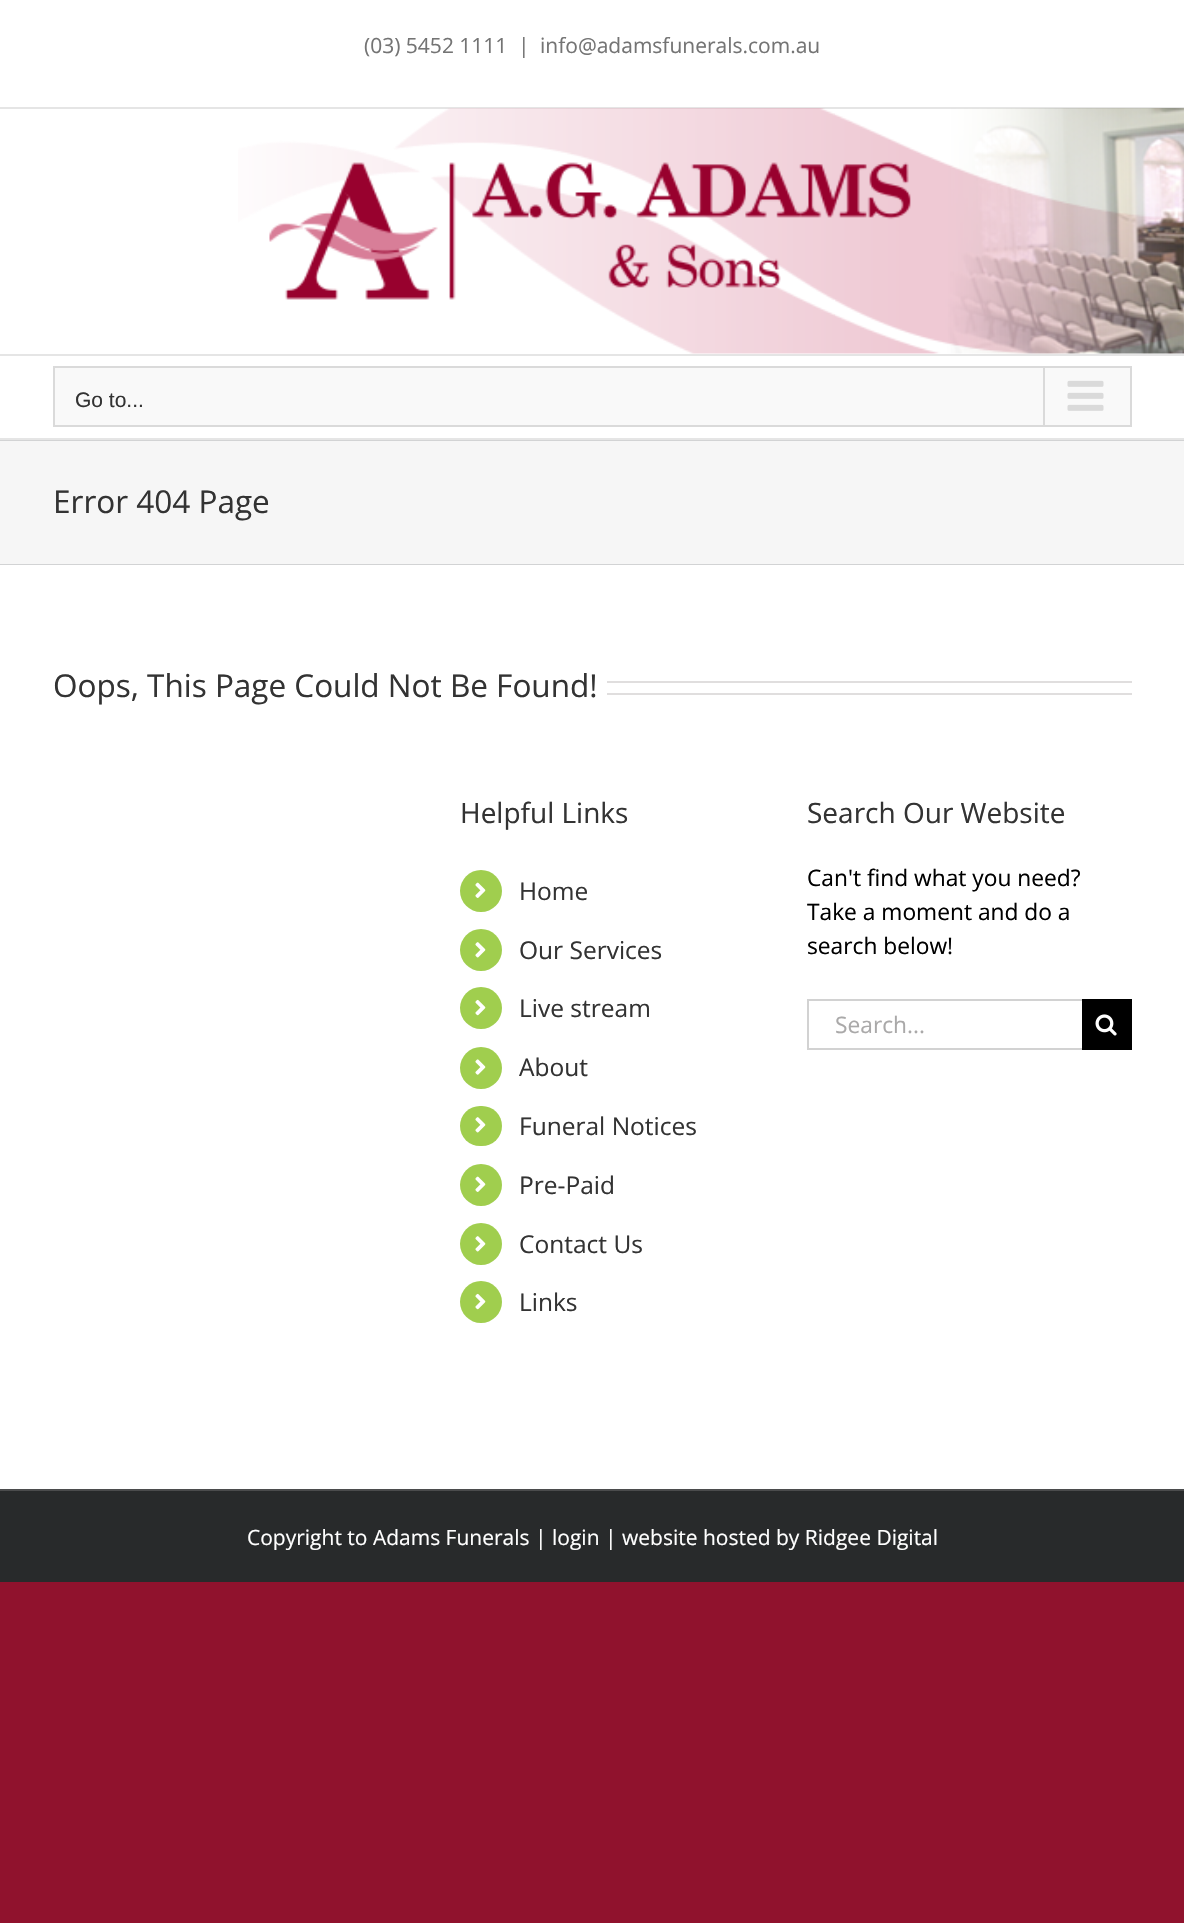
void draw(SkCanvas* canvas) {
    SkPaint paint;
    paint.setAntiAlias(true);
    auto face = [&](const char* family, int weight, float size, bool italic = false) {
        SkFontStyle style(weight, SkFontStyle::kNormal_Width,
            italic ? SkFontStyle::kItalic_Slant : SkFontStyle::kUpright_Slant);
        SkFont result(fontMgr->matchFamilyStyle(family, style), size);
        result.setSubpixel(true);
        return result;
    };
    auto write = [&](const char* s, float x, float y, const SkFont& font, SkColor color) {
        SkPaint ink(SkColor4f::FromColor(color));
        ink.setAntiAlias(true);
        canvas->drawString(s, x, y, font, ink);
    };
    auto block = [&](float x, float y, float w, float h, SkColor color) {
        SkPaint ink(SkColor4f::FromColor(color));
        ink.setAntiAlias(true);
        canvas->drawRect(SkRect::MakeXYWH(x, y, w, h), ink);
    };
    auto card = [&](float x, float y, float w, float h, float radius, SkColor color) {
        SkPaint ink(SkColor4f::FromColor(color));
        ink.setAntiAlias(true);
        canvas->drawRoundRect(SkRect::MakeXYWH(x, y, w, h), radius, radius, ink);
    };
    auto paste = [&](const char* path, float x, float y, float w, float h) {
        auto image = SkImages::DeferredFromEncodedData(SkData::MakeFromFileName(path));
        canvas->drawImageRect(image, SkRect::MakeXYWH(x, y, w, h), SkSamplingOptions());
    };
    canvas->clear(SkColorSetRGB(144, 18, 45));
    block(0, 0, 1184, 107, SK_ColorWHITE);
    block(0, 107, 1184, 2, SkColorSetRGB(229, 229, 229));
    auto kFont1 = face("Open Sans", 400, 21);
    write("(03) 5452 1111", 364, 53, kFont1, SkColorSetRGB(116, 116, 116));
    write("|", 518, 53, kFont1, SkColorSetRGB(116, 116, 116));
    write("info@adamsfunerals.com.au", 540, 53, kFont1, SkColorSetRGB(116, 116, 116));
    block(0, 109, 1184, 245, SK_ColorWHITE);
    paste("pic1.png", 238, 108, 946, 246);
    block(0, 354, 1184, 2, SkColorSetRGB(229, 229, 229));
    paste("pic2.png", 269, 162, 642, 138);
    block(0, 356, 1184, 82, SK_ColorWHITE);
    block(0, 438, 1184, 2, SkColorSetRGB(229, 229, 229));
    paint.setColor(SkColorSetRGB(249, 249, 249));
    canvas->drawRect(SkRect::MakeXYWH(54, 367, 1077, 59), paint);
    paint.setStyle(SkPaint::kStroke_Style);
    paint.setStrokeWidth(2);
    paint.setColor(SkColorSetRGB(218, 218, 218));
    canvas->drawRect(SkRect::MakeXYWH(54, 367, 1077, 59), paint);
    auto kFont2 = face("Liberation Sans", 400, 21);
    write("Go to...", 75, 407, kFont2, SkColorSetRGB(51, 51, 51));
    block(1043, 368, 2, 57, SkColorSetRGB(218, 218, 218));
    paste("pic3.png", 1067, 380, 37, 31);
    block(0, 441, 1184, 123, SkColorSetRGB(246, 246, 246));
    block(0, 440, 1184, 1, SkColorSetRGB(210, 211, 212));
    block(0, 564, 1184, 1, SkColorSetRGB(210, 211, 212));
    auto kFont3 = face("Open Sans", 400, 31.5f);
    write("Error 404 Page", 53, 513, kFont3, SkColorSetRGB(51, 51, 51));
    block(0, 565, 1184, 924, SK_ColorWHITE);
    write("Oops, This Page Could Not Be Found!", 53, 697, kFont3, SkColorSetRGB(51, 51, 51));
    block(607, 681, 525, 2, SkColorSetRGB(224, 222, 222));
    block(607, 693, 525, 2, SkColorSetRGB(224, 222, 222));
    auto kFont4 = face("Open Sans", 400, 28);
    write("Helpful Links", 460, 823, kFont4, SkColorSetRGB(51, 51, 51));
    paint.setStyle(SkPaint::kFill_Style);
    paint.setColor(SkColorSetRGB(160, 206, 78));
    canvas->drawCircle(481, 891, 21, paint);
    paste("pic4.png", 475, 882, 11, 16);
    auto kFont5 = face("Open Sans", 400, 24.5f);
    write("Home", 519, 900, kFont5, SkColorSetRGB(51, 51, 51));
    canvas->drawCircle(481, 950, 21, paint);
    paste("pic5.png", 475, 942, 11, 16);
    write("Our Services", 519, 959, kFont5, SkColorSetRGB(51, 51, 51));
    canvas->drawCircle(481, 1008, 21, paint);
    paste("pic6.png", 475, 999, 11, 17);
    write("Live stream", 519, 1017, kFont5, SkColorSetRGB(51, 51, 51));
    canvas->drawCircle(481, 1068, 21, paint);
    paste("pic7.png", 475, 1059, 11, 16);
    write("About", 519, 1076, kFont5, SkColorSetRGB(51, 51, 51));
    card(460, 1106, 42, 40, 20, SkColorSetRGB(160, 206, 78));
    paste("pic5.png", 475, 1117, 11, 16);
    write("Funeral Notices", 519, 1135, kFont5, SkColorSetRGB(51, 51, 51));
    canvas->drawCircle(481, 1185, 21, paint);
    paste("pic4.png", 475, 1176, 11, 16);
    write("Pre-Paid", 519, 1194, kFont5, SkColorSetRGB(51, 51, 51));
    canvas->drawCircle(481, 1244, 21, paint);
    paste("pic5.png", 475, 1236, 11, 16);
    write("Contact Us", 519, 1253, kFont5, SkColorSetRGB(51, 51, 51));
    canvas->drawCircle(481, 1302, 21, paint);
    paste("pic6.png", 475, 1293, 11, 17);
    write("Links", 519, 1311, kFont5, SkColorSetRGB(51, 51, 51));
    write("Search Our Website", 807, 823, kFont4, SkColorSetRGB(51, 51, 51));
    auto kFont6 = face("Open Sans", 400, 22.75f);
    write("Can't find what you need?", 807, 886, kFont6, SK_ColorBLACK);
    write("Take a moment and do a", 807, 920, kFont6, SK_ColorBLACK);
    write("search below!", 807, 954, kFont6, SK_ColorBLACK);
    block(807, 999, 275, 2, SkColorSetRGB(210, 210, 210));
    block(807, 1048, 275, 2, SkColorSetRGB(210, 210, 210));
    block(807, 999, 2, 51, SkColorSetRGB(210, 210, 210));
    write("Search...", 835, 1033, kFont6, SkColorSetRGB(170, 169, 169));
    block(1082, 999, 50, 51, SK_ColorBLACK);
    paste("pic8.png", 1095, 1014, 22, 22);
    block(0, 1491, 1184, 91, SkColorSetRGB(40, 42, 43));
    block(0, 1489, 1184, 2, SkColorSetRGB(75, 76, 77));
    write("Copyright to Adams Funerals | login | website hosted by Ridgee Digital", 247, 1545, kFont1, SK_ColorWHITE);
}
